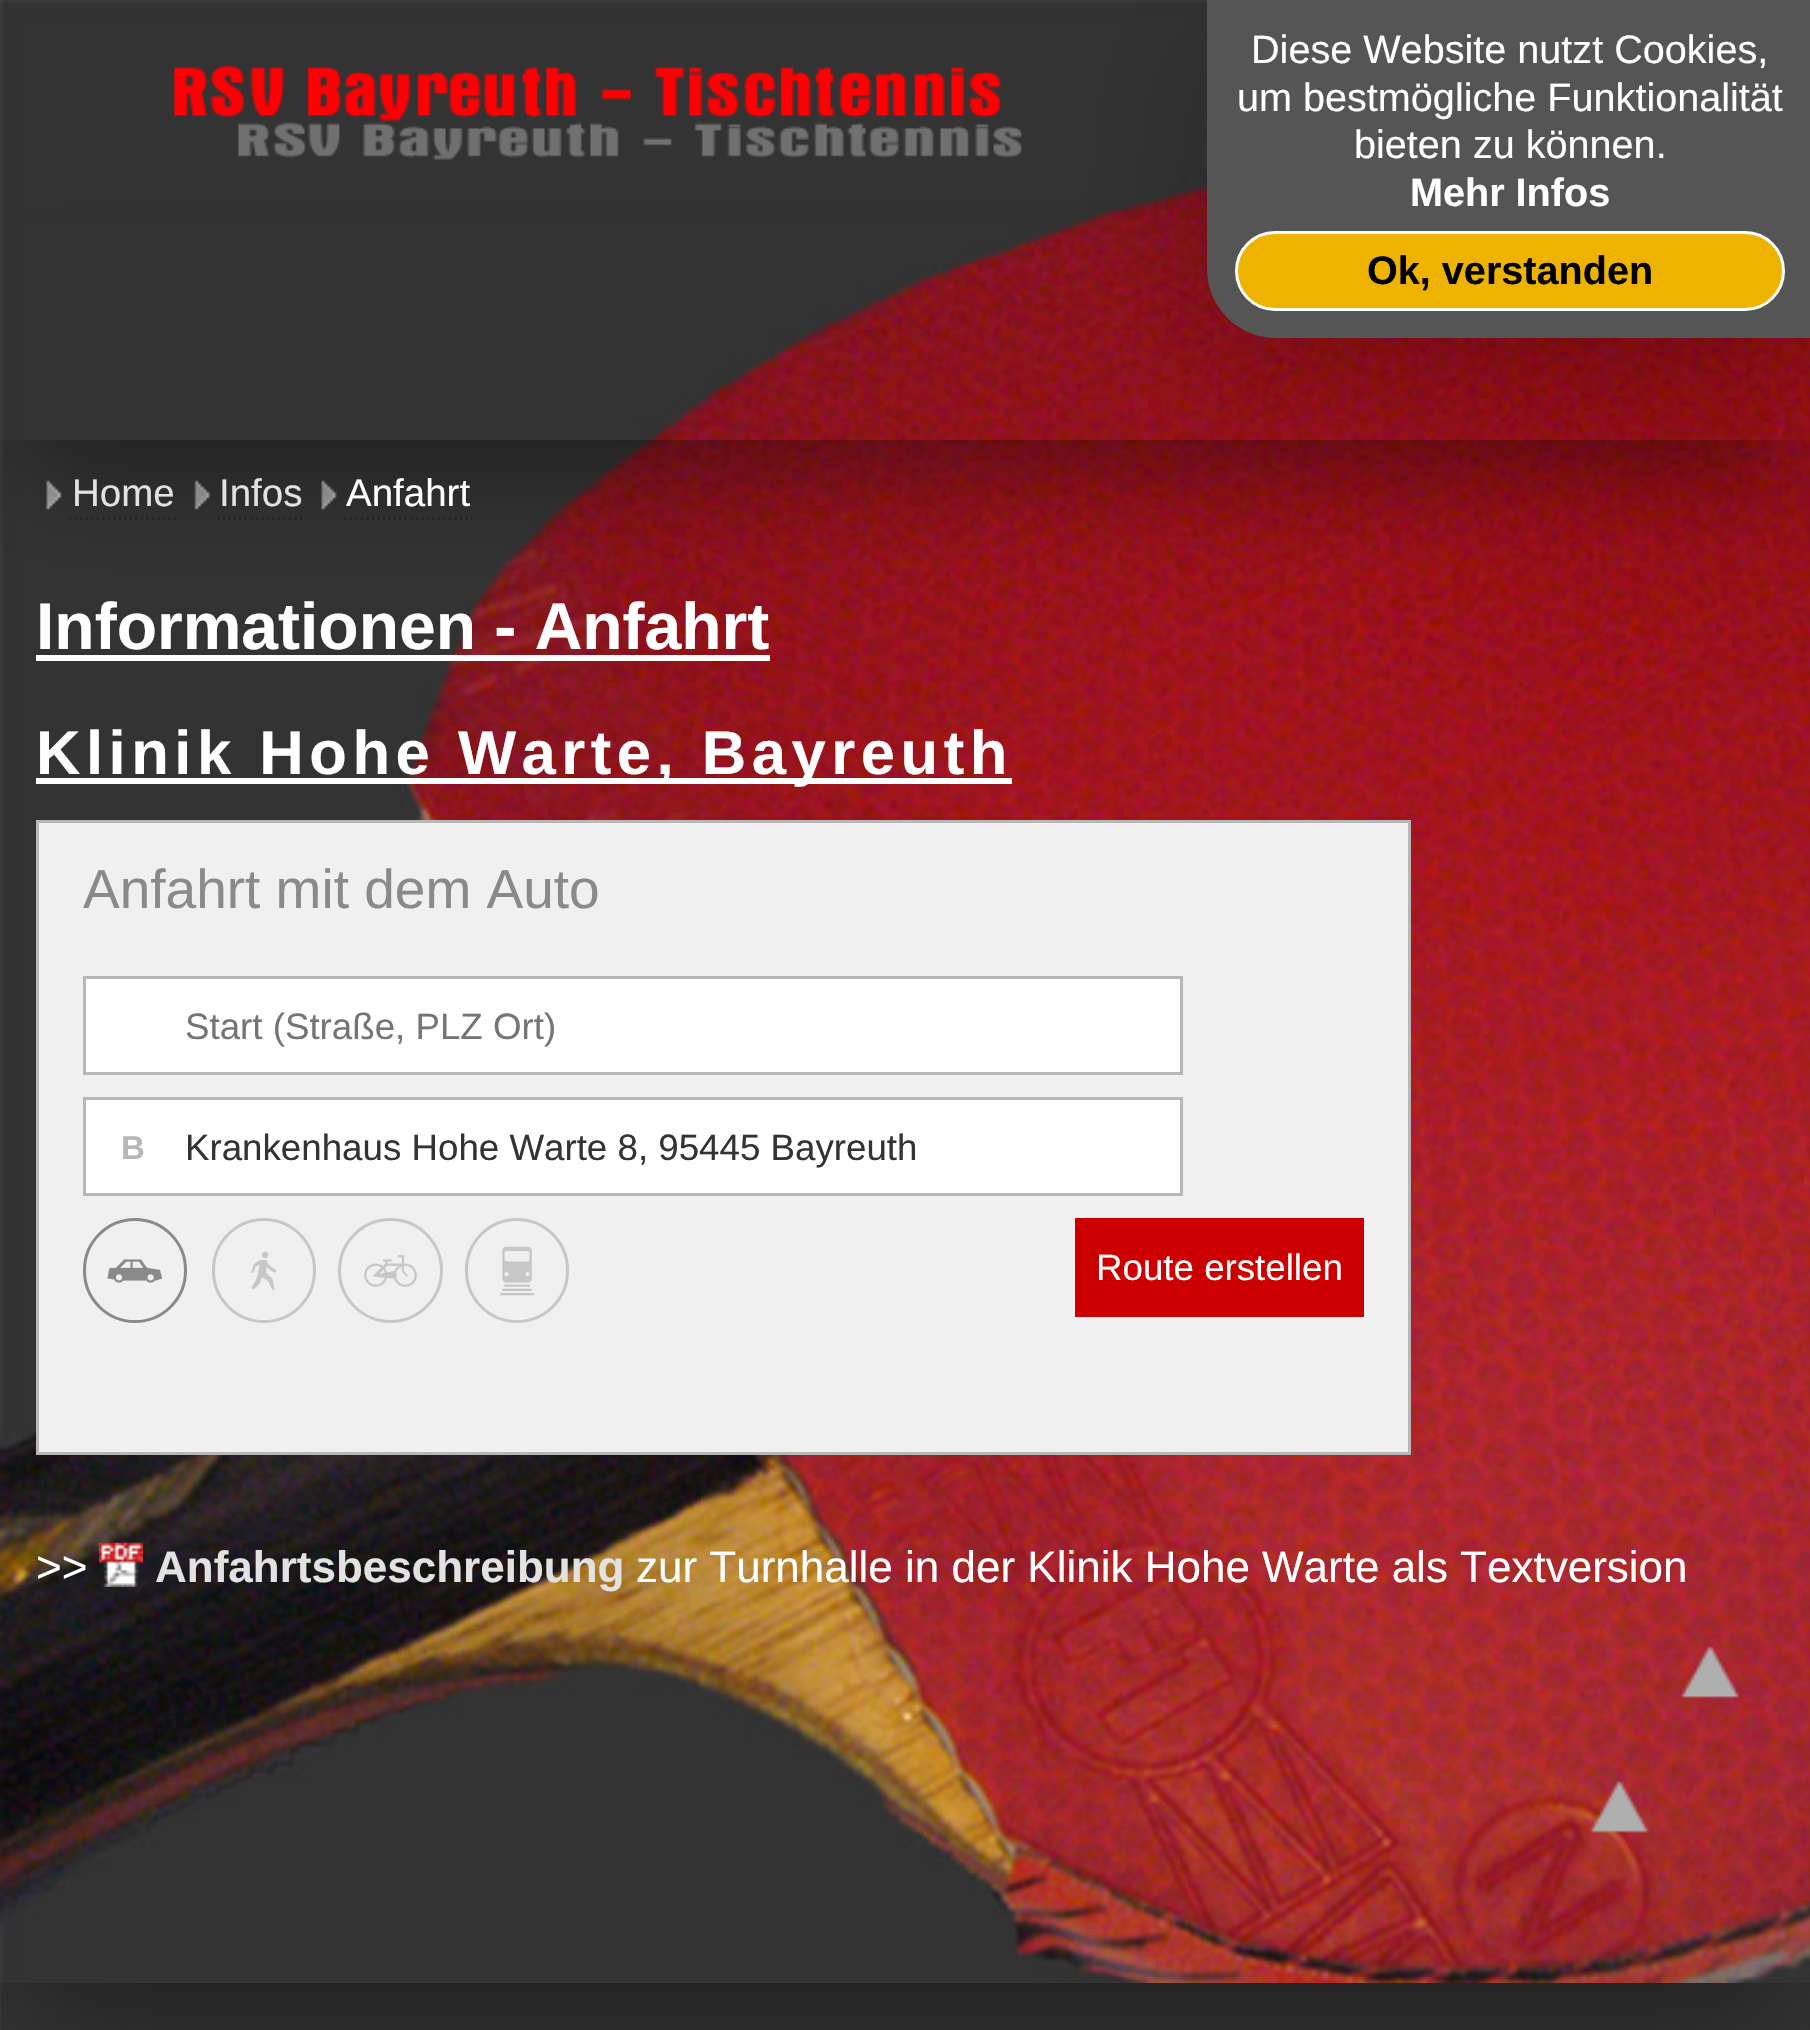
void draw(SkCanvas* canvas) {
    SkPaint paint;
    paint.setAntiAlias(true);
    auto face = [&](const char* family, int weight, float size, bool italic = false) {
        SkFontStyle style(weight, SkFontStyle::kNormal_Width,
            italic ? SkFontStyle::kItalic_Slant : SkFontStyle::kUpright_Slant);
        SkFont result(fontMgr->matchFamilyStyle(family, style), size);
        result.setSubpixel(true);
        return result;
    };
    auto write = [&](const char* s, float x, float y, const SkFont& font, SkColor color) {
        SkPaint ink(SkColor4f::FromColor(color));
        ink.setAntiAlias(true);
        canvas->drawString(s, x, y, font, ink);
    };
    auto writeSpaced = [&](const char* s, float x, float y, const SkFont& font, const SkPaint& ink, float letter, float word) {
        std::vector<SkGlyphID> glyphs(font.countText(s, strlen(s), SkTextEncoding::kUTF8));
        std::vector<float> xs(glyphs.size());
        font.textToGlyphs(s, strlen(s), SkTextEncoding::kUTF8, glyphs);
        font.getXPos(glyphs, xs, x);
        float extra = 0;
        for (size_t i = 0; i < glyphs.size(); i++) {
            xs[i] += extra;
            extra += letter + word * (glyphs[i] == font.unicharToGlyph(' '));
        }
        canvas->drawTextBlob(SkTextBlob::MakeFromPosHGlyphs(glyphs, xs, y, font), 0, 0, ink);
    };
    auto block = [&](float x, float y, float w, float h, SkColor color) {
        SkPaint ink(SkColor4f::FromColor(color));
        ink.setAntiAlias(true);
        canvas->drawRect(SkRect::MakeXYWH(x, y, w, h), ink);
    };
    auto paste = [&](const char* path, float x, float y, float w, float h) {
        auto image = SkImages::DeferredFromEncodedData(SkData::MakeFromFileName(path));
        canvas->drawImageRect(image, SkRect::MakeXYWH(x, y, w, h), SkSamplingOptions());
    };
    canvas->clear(SK_ColorWHITE);
    paste("pic1.png", 0, 1983, 1810, 47);
    paint.setColor(SkColorSetARGB(102, 0, 0, 0));
    paint.setMaskFilter(SkMaskFilter::MakeBlur(kNormal_SkBlurStyle, 55));
    canvas->drawRect(SkRect::MakeXYWH(28, 83, 1757, 1927), paint);
    paint.setMaskFilter(nullptr);
    paste("pic2.png", 0, 0, 1810, 1983);
    paste("pic3.png", 173, 65, 849, 95);
    paint.setColor(SkColorSetARGB(51, 0, 0, 0));
    paint.setMaskFilter(SkMaskFilter::MakeBlur(kNormal_SkBlurStyle, 69));
    canvas->drawRoundRect(SkRect::MakeXYWH(1207, 28, 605, 338), 69, 69, paint);
    paint.setMaskFilter(nullptr);
    paste("pic4.png", 46, 480, 16, 30);
    paint.setStyle(SkPaint::kStroke_Style);
    paint.setStrokeWidth(2.8f);
    paint.setColor(SkColorSetRGB(42, 42, 42));
    paint.setPathEffect(SkDashPathEffect::Make({{2.75f, 2.75f}}, 0));
    canvas->drawPath(SkPathBuilder().moveTo(69, 518.5f).lineTo(179, 518.5f).detach(), paint);
    paint.setPathEffect(nullptr);
    paste("pic5.png", 194, 480, 16, 30);
    paint.setPathEffect(SkDashPathEffect::Make({{2.75f, 2.75f}}, 0));
    canvas->drawPath(SkPathBuilder().moveTo(217, 518.5f).lineTo(305, 518.5f).detach(), paint);
    paint.setPathEffect(nullptr);
    paste("pic4.png", 321, 480, 16, 30);
    paint.setPathEffect(SkDashPathEffect::Make({{2.75f, 2.75f}}, 0));
    canvas->drawPath(SkPathBuilder().moveTo(344, 518.5f).lineTo(473, 518.5f).detach(), paint);
    paint.setPathEffect(nullptr);
    canvas->save();
    canvas->clipPath(SkPathBuilder(SkPathFillType::kEvenOdd).moveTo(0, 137).lineTo(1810, 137).lineTo(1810, 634).lineTo(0, 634).close().moveTo(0, 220).lineTo(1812, 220).lineTo(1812, 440).lineTo(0, 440).close().detach(), true);
    paint.setStyle(SkPaint::kFill_Style);
    paint.setColor(SkColorSetARGB(102, 0, 0, 0));
    paint.setMaskFilter(SkMaskFilter::MakeBlur(kNormal_SkBlurStyle, 55));
    canvas->drawRect(SkRect::MakeXYWH(28, 303, 1757, 165), paint);
    paint.setMaskFilter(nullptr);
    canvas->restore();
    paint.setColor(SkColorSetRGB(85, 85, 85));
    canvas->drawPath(SkPathBuilder().moveTo(1207, 0).lineTo(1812, 0).lineTo(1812, 338).lineTo(1276, 338).cubicTo(1238, 338, 1207, 307, 1207, 269).close().detach(), paint);
    auto kFont1 = face("Liberation Sans", 400, 39.6f);
    write("Diese Website nutzt Cookies,", 1251, 63, kFont1, SK_ColorWHITE);
    write("um bestmögliche Funktionalität", 1237, 111, kFont1, SK_ColorWHITE);
    write("bieten zu können.", 1354, 158, kFont1, SK_ColorWHITE);
    auto kFont2 = face("Liberation Sans", 700, 39.6f);
    write("Mehr Infos", 1410, 206, kFont2, SK_ColorWHITE);
    paint.setColor(SkColorSetRGB(238, 179, 0));
    canvas->drawRoundRect(SkRect::MakeXYWH(1236.5f, 232.5f, 547, 77), 38.5f, 38.5f, paint);
    paint.setStyle(SkPaint::kStroke_Style);
    paint.setStrokeWidth(3);
    paint.setColor(SK_ColorWHITE);
    canvas->drawRoundRect(SkRect::MakeXYWH(1236.5f, 232.5f, 547, 77), 38.5f, 38.5f, paint);
    write("Ok, verstanden", 1367, 284, kFont2, SK_ColorBLACK);
    auto kFont3 = face("Liberation Sans", 400, 38.5f);
    write("Home", 72, 506, kFont3, SkColorSetRGB(226, 226, 226));
    write("Infos", 219, 506, kFont3, SkColorSetRGB(226, 226, 226));
    write("Anfahrt", 346, 506, kFont3, SK_ColorWHITE);
    auto kFont4 = face("Liberation Sans", 700, 66);
    write("Informationen - Anfahrt", 36, 649, kFont4, SK_ColorWHITE);
    block(36, 655, 734, 6, SK_ColorWHITE);
    block(36, 778, 976, 6, SK_ColorWHITE);
    auto kFont5 = face("Liberation Sans", 700, 61.6f);
    paint.setStyle(SkPaint::kFill_Style);
    writeSpaced("Klinik Hohe Warte, Bayreuth", 36, 774, kFont5, paint, 5.5f, 0);
    paint.setColor(SkColorSetRGB(240, 240, 240));
    canvas->drawRect(SkRect::MakeXYWH(37.5f, 821.5f, 1372, 632), paint);
    paint.setStyle(SkPaint::kStroke_Style);
    paint.setColor(SkColorSetRGB(183, 183, 183));
    canvas->drawRect(SkRect::MakeXYWH(37.5f, 821.5f, 1372, 632), paint);
    auto kFont6 = face("Liberation Sans", 400, 55);
    write("Anfahrt mit dem Auto", 83, 908, kFont6, SkColorSetRGB(138, 138, 138));
    paint.setStyle(SkPaint::kFill_Style);
    paint.setColor(SK_ColorWHITE);
    canvas->drawRect(SkRect::MakeXYWH(84.5f, 977.5f, 1097, 96), paint);
    paint.setStyle(SkPaint::kStroke_Style);
    paint.setColor(SkColorSetRGB(183, 183, 183));
    canvas->drawRect(SkRect::MakeXYWH(84.5f, 977.5f, 1097, 96), paint);
    auto kFont7 = face("Liberation Sans", 400, 36.7f);
    write("Start (Straße, PLZ Ort)", 185, 1039, kFont7, SkColorSetRGB(117, 117, 117));
    paint.setStyle(SkPaint::kFill_Style);
    paint.setColor(SK_ColorWHITE);
    canvas->drawRect(SkRect::MakeXYWH(84.5f, 1098.5f, 1097, 96), paint);
    paint.setStyle(SkPaint::kStroke_Style);
    paint.setColor(SkColorSetRGB(183, 183, 183));
    canvas->drawRect(SkRect::MakeXYWH(84.5f, 1098.5f, 1097, 96), paint);
    auto kFont8 = face("Liberation Sans", 700, 33);
    write("B", 121, 1159, kFont8, SkColorSetRGB(183, 183, 183));
    write("Krankenhaus Hohe Warte 8, 95445 Bayreuth", 185, 1160, kFont7, SkColorSetRGB(51, 51, 51));
    paint.setColor(SkColorSetRGB(138, 138, 138));
    canvas->drawRoundRect(SkRect::MakeXYWH(84.5f, 1219.5f, 101, 102), 50.5f, 50.5f, paint);
    paste("pic6.png", 107, 1259, 55, 24);
    paint.setColor(SkColorSetRGB(199, 199, 199));
    canvas->drawRoundRect(SkRect::MakeXYWH(213.5f, 1219.5f, 101, 102), 50.5f, 50.5f, paint);
    paste("pic7.png", 251, 1251, 26, 39);
    canvas->drawCircle(390.5f, 1270.5f, 51, paint);
    paste("pic8.png", 364, 1255, 53, 32);
    canvas->drawRoundRect(SkRect::MakeXYWH(466.5f, 1219.5f, 101, 102), 50.5f, 50.5f, paint);
    paste("pic9.png", 500, 1246, 34, 50);
    block(1075, 1218, 289, 99, SkColorSetRGB(204, 0, 0));
    write("Route erstellen", 1096, 1280, kFont7, SK_ColorWHITE);
    auto kFont9 = face("Liberation Sans", 400, 44);
    write(">>", 36, 1582, kFont9, SK_ColorWHITE);
    paste("pic10.png", 99, 1542, 44, 45);
    auto kFont10 = face("Liberation Sans", 700, 44);
    write("Anfahrtsbeschreibung", 155, 1582, kFont10, SkColorSetRGB(226, 226, 226));
    write("zur Turnhalle in der Klinik Hohe Warte als Textversion", 636, 1582, kFont9, SK_ColorWHITE);
    paste("pic11.png", 1680, 1646, 59, 52);
    paste("pic12.png", 0, 1708, 1810, 165);
    paste("pic13.png", 1589, 1781, 60, 52);
}
